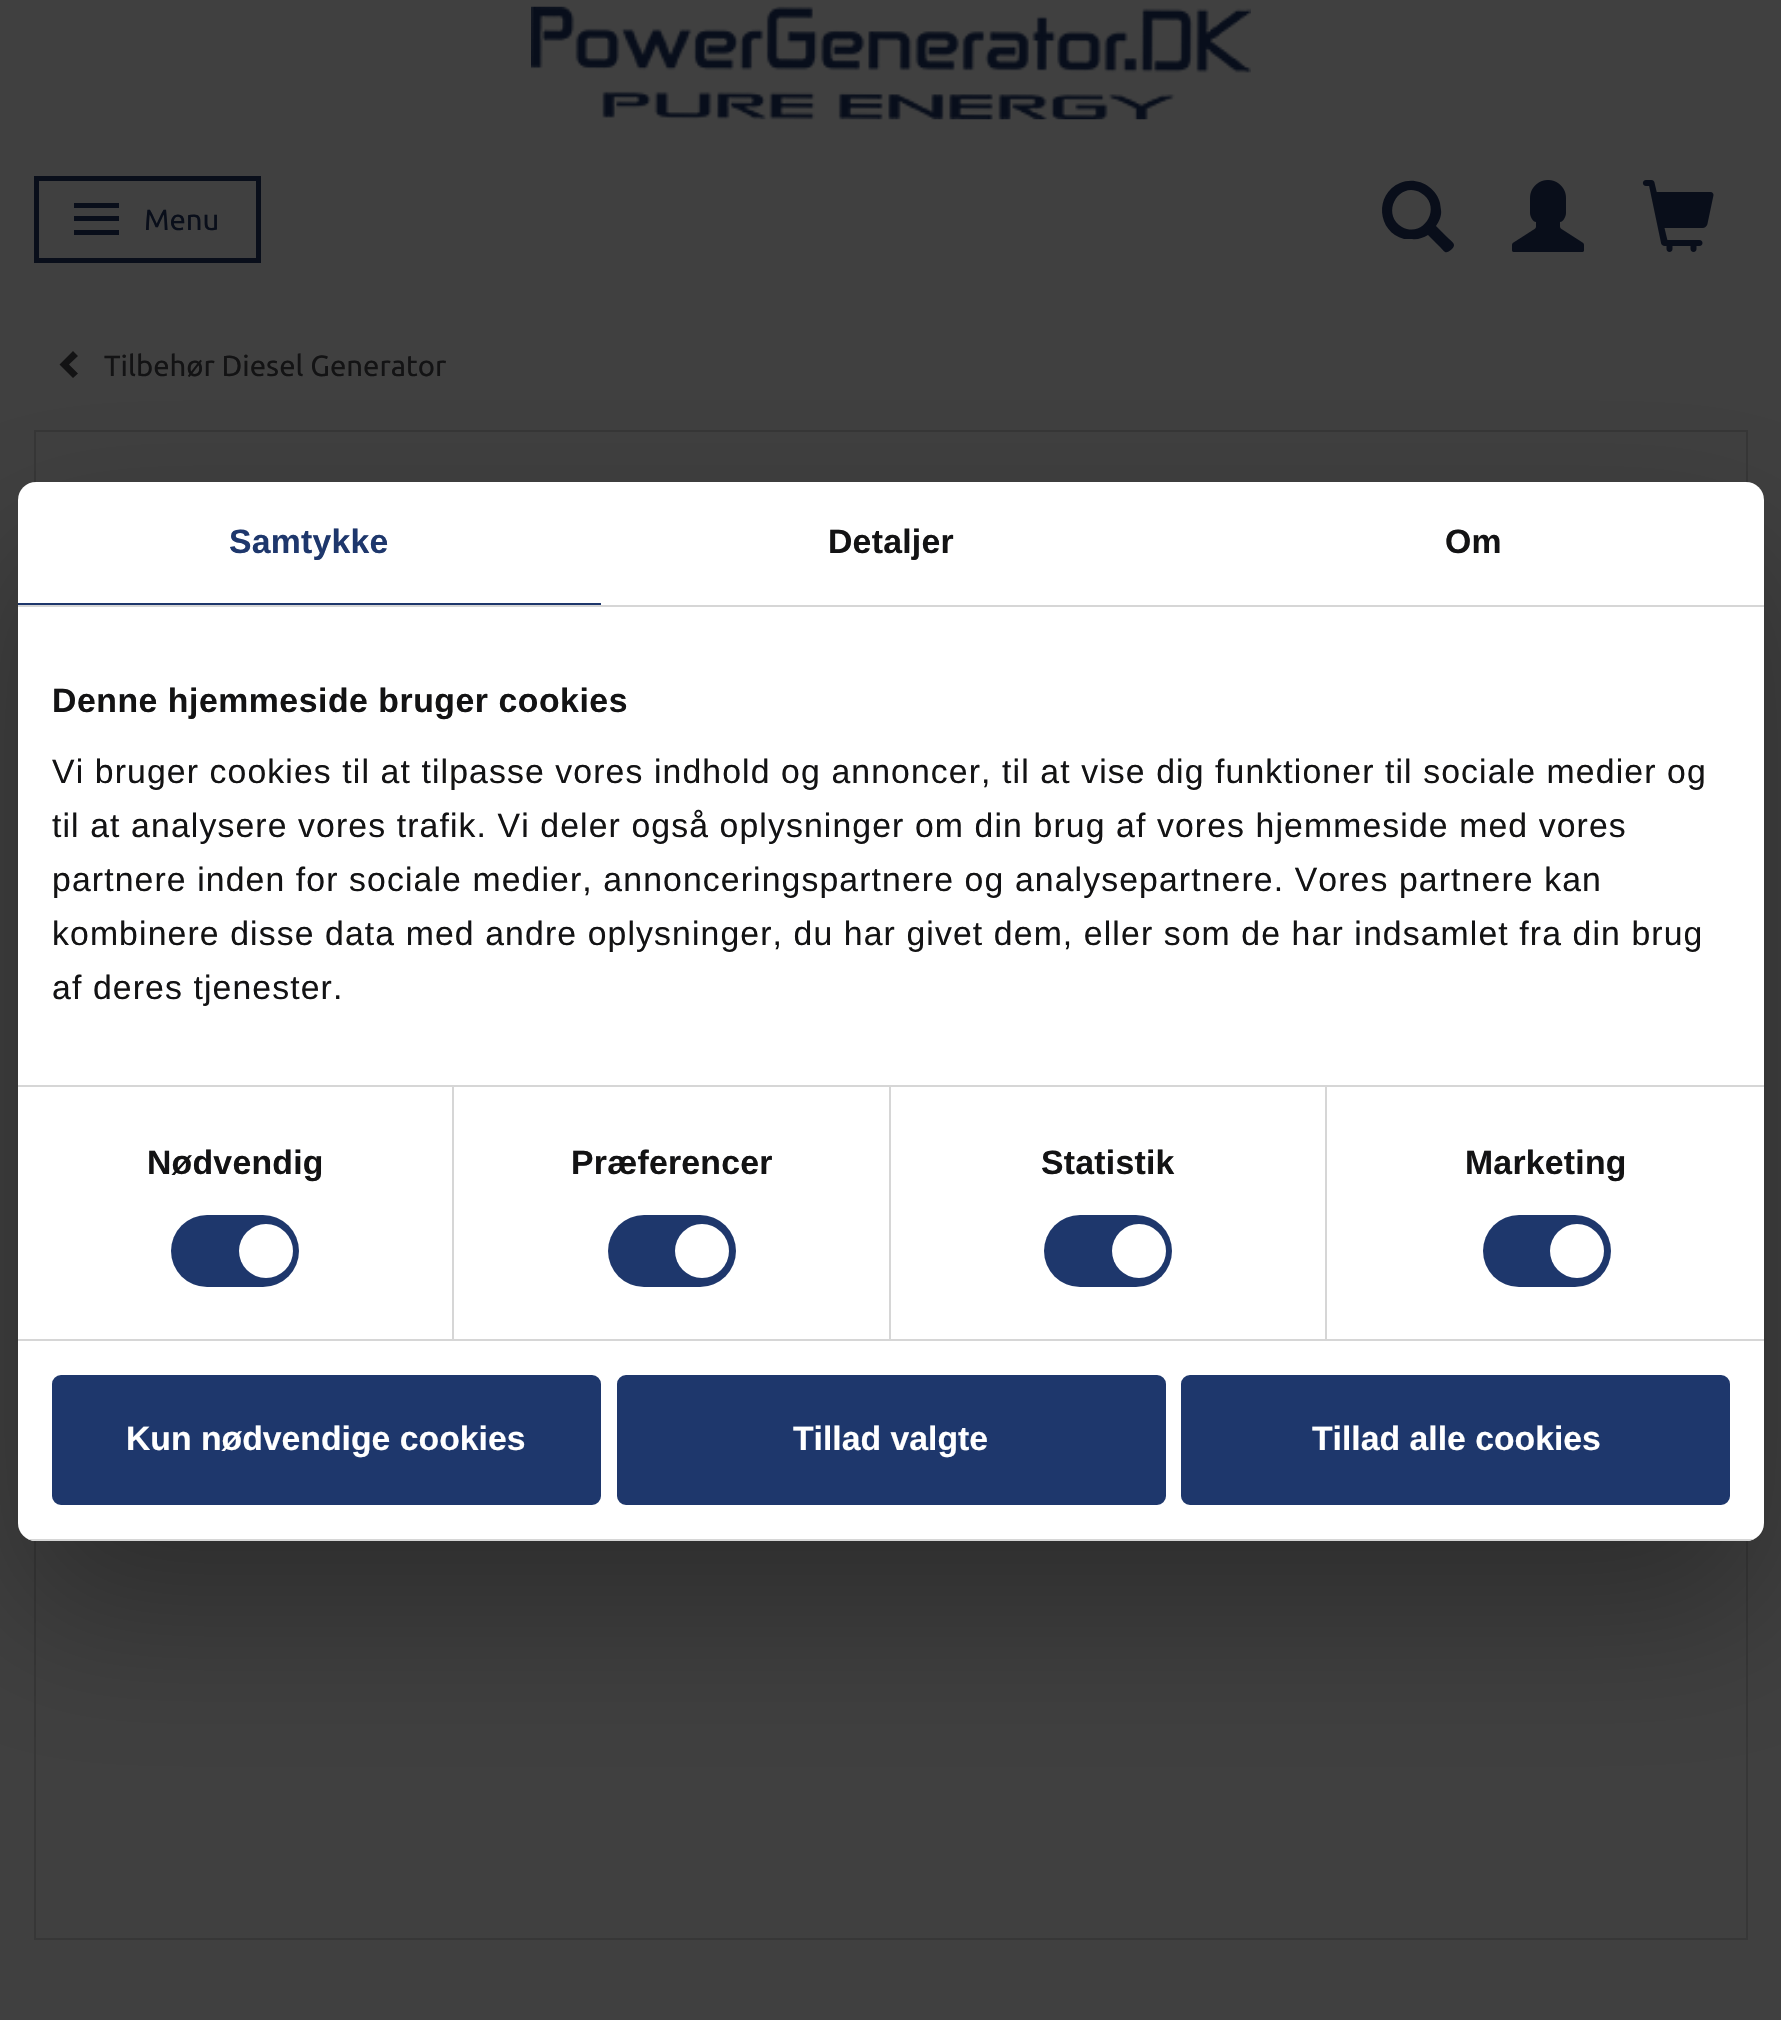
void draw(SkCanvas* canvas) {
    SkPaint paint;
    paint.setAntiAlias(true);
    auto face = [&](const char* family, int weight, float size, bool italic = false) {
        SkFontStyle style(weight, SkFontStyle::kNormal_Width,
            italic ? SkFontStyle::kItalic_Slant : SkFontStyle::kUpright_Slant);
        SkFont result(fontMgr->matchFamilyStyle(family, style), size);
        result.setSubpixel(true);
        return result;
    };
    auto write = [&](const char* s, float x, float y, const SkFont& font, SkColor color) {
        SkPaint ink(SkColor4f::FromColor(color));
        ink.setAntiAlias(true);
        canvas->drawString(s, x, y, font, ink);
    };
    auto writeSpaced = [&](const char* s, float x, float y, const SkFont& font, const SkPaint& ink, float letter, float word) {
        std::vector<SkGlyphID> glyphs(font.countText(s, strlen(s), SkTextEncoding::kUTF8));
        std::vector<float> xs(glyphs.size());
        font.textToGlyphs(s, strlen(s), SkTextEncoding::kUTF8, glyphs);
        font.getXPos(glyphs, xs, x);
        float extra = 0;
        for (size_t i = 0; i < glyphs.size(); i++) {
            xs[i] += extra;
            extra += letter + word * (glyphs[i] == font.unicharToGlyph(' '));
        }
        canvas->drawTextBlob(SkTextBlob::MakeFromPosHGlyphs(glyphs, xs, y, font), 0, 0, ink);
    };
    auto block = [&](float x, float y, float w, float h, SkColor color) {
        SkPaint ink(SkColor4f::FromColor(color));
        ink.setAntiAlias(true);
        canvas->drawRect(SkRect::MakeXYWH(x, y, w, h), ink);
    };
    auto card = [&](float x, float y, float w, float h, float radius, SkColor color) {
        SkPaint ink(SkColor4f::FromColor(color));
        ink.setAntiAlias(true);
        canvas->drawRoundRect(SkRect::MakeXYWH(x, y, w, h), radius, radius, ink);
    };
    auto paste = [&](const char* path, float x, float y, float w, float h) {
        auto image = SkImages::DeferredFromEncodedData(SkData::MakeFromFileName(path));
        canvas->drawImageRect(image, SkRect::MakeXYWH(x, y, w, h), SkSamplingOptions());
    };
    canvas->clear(SkColorSetRGB(64, 64, 64));
    paste("pic1.png", 531, 6, 720, 114);
    paint.setStyle(SkPaint::kStroke_Style);
    paint.setStrokeWidth(5);
    paint.setColor(SkColorSetRGB(9, 14, 26));
    canvas->drawRect(SkRect::MakeXYWH(36.5f, 178.5f, 222, 82), paint);
    block(74, 203, 45, 5, SkColorSetRGB(9, 14, 26));
    block(74, 216, 45, 5, SkColorSetRGB(9, 14, 26));
    block(74, 230, 45, 5, SkColorSetRGB(9, 14, 26));
    auto kFont1 = face("Ubuntu", 400, 29.25f);
    write("Menu", 144, 230, kFont1, SkColorSetRGB(9, 14, 26));
    paint.setStyle(SkPaint::kFill_Style);
    canvas->drawPath(SkPathBuilder().moveTo(1400, 183).cubicTo(1416, 176, 1436, 186, 1440, 203).lineTo(1441, 210).cubicTo(1442, 215, 1439, 222, 1436, 226).lineTo(1447, 237).cubicTo(1452, 242, 1457, 244, 1452, 249).cubicTo(1445, 255, 1445, 252, 1439, 246).lineTo(1428, 235).cubicTo(1423, 238, 1417, 240, 1412, 239).lineTo(1404, 239).cubicTo(1377, 232, 1374, 194, 1400, 183).close().moveTo(1421, 193).cubicTo(1399, 180, 1380, 214, 1402, 227).cubicTo(1424, 239, 1443, 206, 1421, 193).close().detach(), paint);
    paste("pic2.png", 1512, 180, 72, 72);
    paste("pic3.png", 1642, 180, 72, 72);
    paint.setColor(SkColorSetRGB(19, 19, 20));
    canvas->drawPath(SkPathBuilder().moveTo(78, 356).lineTo(69, 364.5f).lineTo(78, 373.5f).lineTo(73, 378).lineTo(59.5f, 364.5f).lineTo(73, 351).close().detach(), paint);
    write("Tilbehør Diesel Generator", 104, 376, kFont1, SkColorSetRGB(19, 19, 20));
    paint.setStyle(SkPaint::kStroke_Style);
    paint.setStrokeWidth(2);
    paint.setColor(SkColorSetRGB(55, 55, 55));
    canvas->drawRect(SkRect::MakeXYWH(35, 431, 1712, 1508), paint);
    paint.setStyle(SkPaint::kFill_Style);
    paint.setColor(SkColorSetARGB(77, 0, 0, 0));
    paint.setMaskFilter(SkMaskFilter::MakeBlur(kNormal_SkBlurStyle, 76.5f));
    canvas->drawRoundRect(SkRect::MakeXYWH(18, 554, 1746, 1059), 18, 18, paint);
    paint.setMaskFilter(nullptr);
    card(18, 482, 1746, 1059, 18, SK_ColorWHITE);
    block(18, 605, 1746, 2, SkColorSetRGB(214, 214, 214));
    block(18, 603, 583, 2, SkColorSetRGB(30, 55, 108));
    auto kFont2 = face("Liberation Sans", 700, 33.75f);
    paint.setColor(SkColorSetRGB(30, 55, 108));
    writeSpaced("Samtykke", 229, 553, kFont2, paint, 0.25f, 0);
    paint.setColor(SkColorSetRGB(19, 19, 20));
    writeSpaced("Detaljer", 828, 553, kFont2, paint, 0.25f, 0);
    writeSpaced("Om", 1445, 553, kFont2, paint, 0.25f, 0);
    block(18, 1085, 1746, 2, SkColorSetRGB(214, 214, 214));
    writeSpaced("Denne hjemmeside bruger cookies", 52, 712, kFont2, paint, 0.55f, 0);
    auto kFont3 = face("Liberation Sans", 400, 33.75f);
    writeSpaced("Vi bruger cookies til at tilpasse vores indhold og annoncer, til at vise dig funktioner til sociale medier og", 52, 783, kFont3, paint, 1.12f, 0);
    writeSpaced("til at analysere vores trafik. Vi deler også oplysninger om din brug af vores hjemmeside med vores", 52, 837, kFont3, paint, 1.12f, 0);
    writeSpaced("partnere inden for sociale medier, annonceringspartnere og analysepartnere. Vores partnere kan", 52, 891, kFont3, paint, 1.12f, 0);
    writeSpaced("kombinere disse data med andre oplysninger, du har givet dem, eller som de har indsamlet fra din brug", 52, 945, kFont3, paint, 1.12f, 0);
    writeSpaced("af deres tjenester.", 52, 999, kFont3, paint, 1.12f, 0);
    block(18, 1339, 1746, 2, SkColorSetRGB(214, 214, 214));
    block(452, 1087, 2, 252, SkColorSetRGB(214, 214, 214));
    writeSpaced("Nødvendig", 147, 1174, kFont2, paint, 0.25f, 0);
    card(171, 1215, 128, 72, 36, SkColorSetRGB(30, 55, 108));
    paint.setColor(SK_ColorWHITE);
    canvas->drawCircle(266, 1251, 27, paint);
    block(889, 1087, 2, 252, SkColorSetRGB(214, 214, 214));
    paint.setColor(SkColorSetRGB(19, 19, 20));
    writeSpaced("Præferencer", 571, 1174, kFont2, paint, 0.25f, 0);
    card(608, 1215, 128, 72, 36, SkColorSetRGB(30, 55, 108));
    paint.setColor(SK_ColorWHITE);
    canvas->drawCircle(702, 1251, 27, paint);
    block(1325, 1087, 2, 252, SkColorSetRGB(214, 214, 214));
    paint.setColor(SkColorSetRGB(19, 19, 20));
    writeSpaced("Statistik", 1041, 1174, kFont2, paint, 0.25f, 0);
    card(1044, 1215, 128, 72, 36, SkColorSetRGB(30, 55, 108));
    paint.setColor(SK_ColorWHITE);
    canvas->drawCircle(1139, 1251, 27, paint);
    paint.setColor(SkColorSetRGB(19, 19, 20));
    writeSpaced("Marketing", 1465, 1174, kFont2, paint, 0.25f, 0);
    card(1483, 1215, 128, 72, 36, SkColorSetRGB(30, 55, 108));
    paint.setColor(SK_ColorWHITE);
    canvas->drawCircle(1577, 1251, 27, paint);
    canvas->save();
    canvas->clipPath(SkPathBuilder().moveTo(36, 482).lineTo(1746, 482).cubicTo(1756, 482, 1764, 490, 1764, 500).lineTo(1764, 1523).cubicTo(1764, 1533, 1756, 1541, 1746, 1541).lineTo(36, 1541).cubicTo(26, 1541, 18, 1533, 18, 1523).lineTo(18, 500).cubicTo(18, 490, 26, 482, 36, 482).close().detach(), true);
    block(28, 1539, 1726, 2, SkColorSetRGB(214, 214, 214));
    canvas->restore();
    paint.setColor(SkColorSetRGB(30, 55, 108));
    canvas->drawRoundRect(SkRect::MakeXYWH(54.5f, 1377.5f, 544, 125), 6.5f, 6.5f, paint);
    paint.setStyle(SkPaint::kStroke_Style);
    paint.setStrokeWidth(5);
    canvas->drawRoundRect(SkRect::MakeXYWH(54.5f, 1377.5f, 544, 125), 6.5f, 6.5f, paint);
    write("Kun nødvendige cookies", 126, 1450, kFont2, SK_ColorWHITE);
    paint.setStyle(SkPaint::kFill_Style);
    canvas->drawRoundRect(SkRect::MakeXYWH(619.5f, 1377.5f, 544, 125), 6.5f, 6.5f, paint);
    paint.setStyle(SkPaint::kStroke_Style);
    canvas->drawRoundRect(SkRect::MakeXYWH(619.5f, 1377.5f, 544, 125), 6.5f, 6.5f, paint);
    write("Tillad valgte", 793, 1450, kFont2, SK_ColorWHITE);
    paint.setStyle(SkPaint::kFill_Style);
    canvas->drawRoundRect(SkRect::MakeXYWH(1183.5f, 1377.5f, 544, 125), 6.5f, 6.5f, paint);
    paint.setStyle(SkPaint::kStroke_Style);
    canvas->drawRoundRect(SkRect::MakeXYWH(1183.5f, 1377.5f, 544, 125), 6.5f, 6.5f, paint);
    write("Tillad alle cookies", 1312, 1450, kFont2, SK_ColorWHITE);
}
